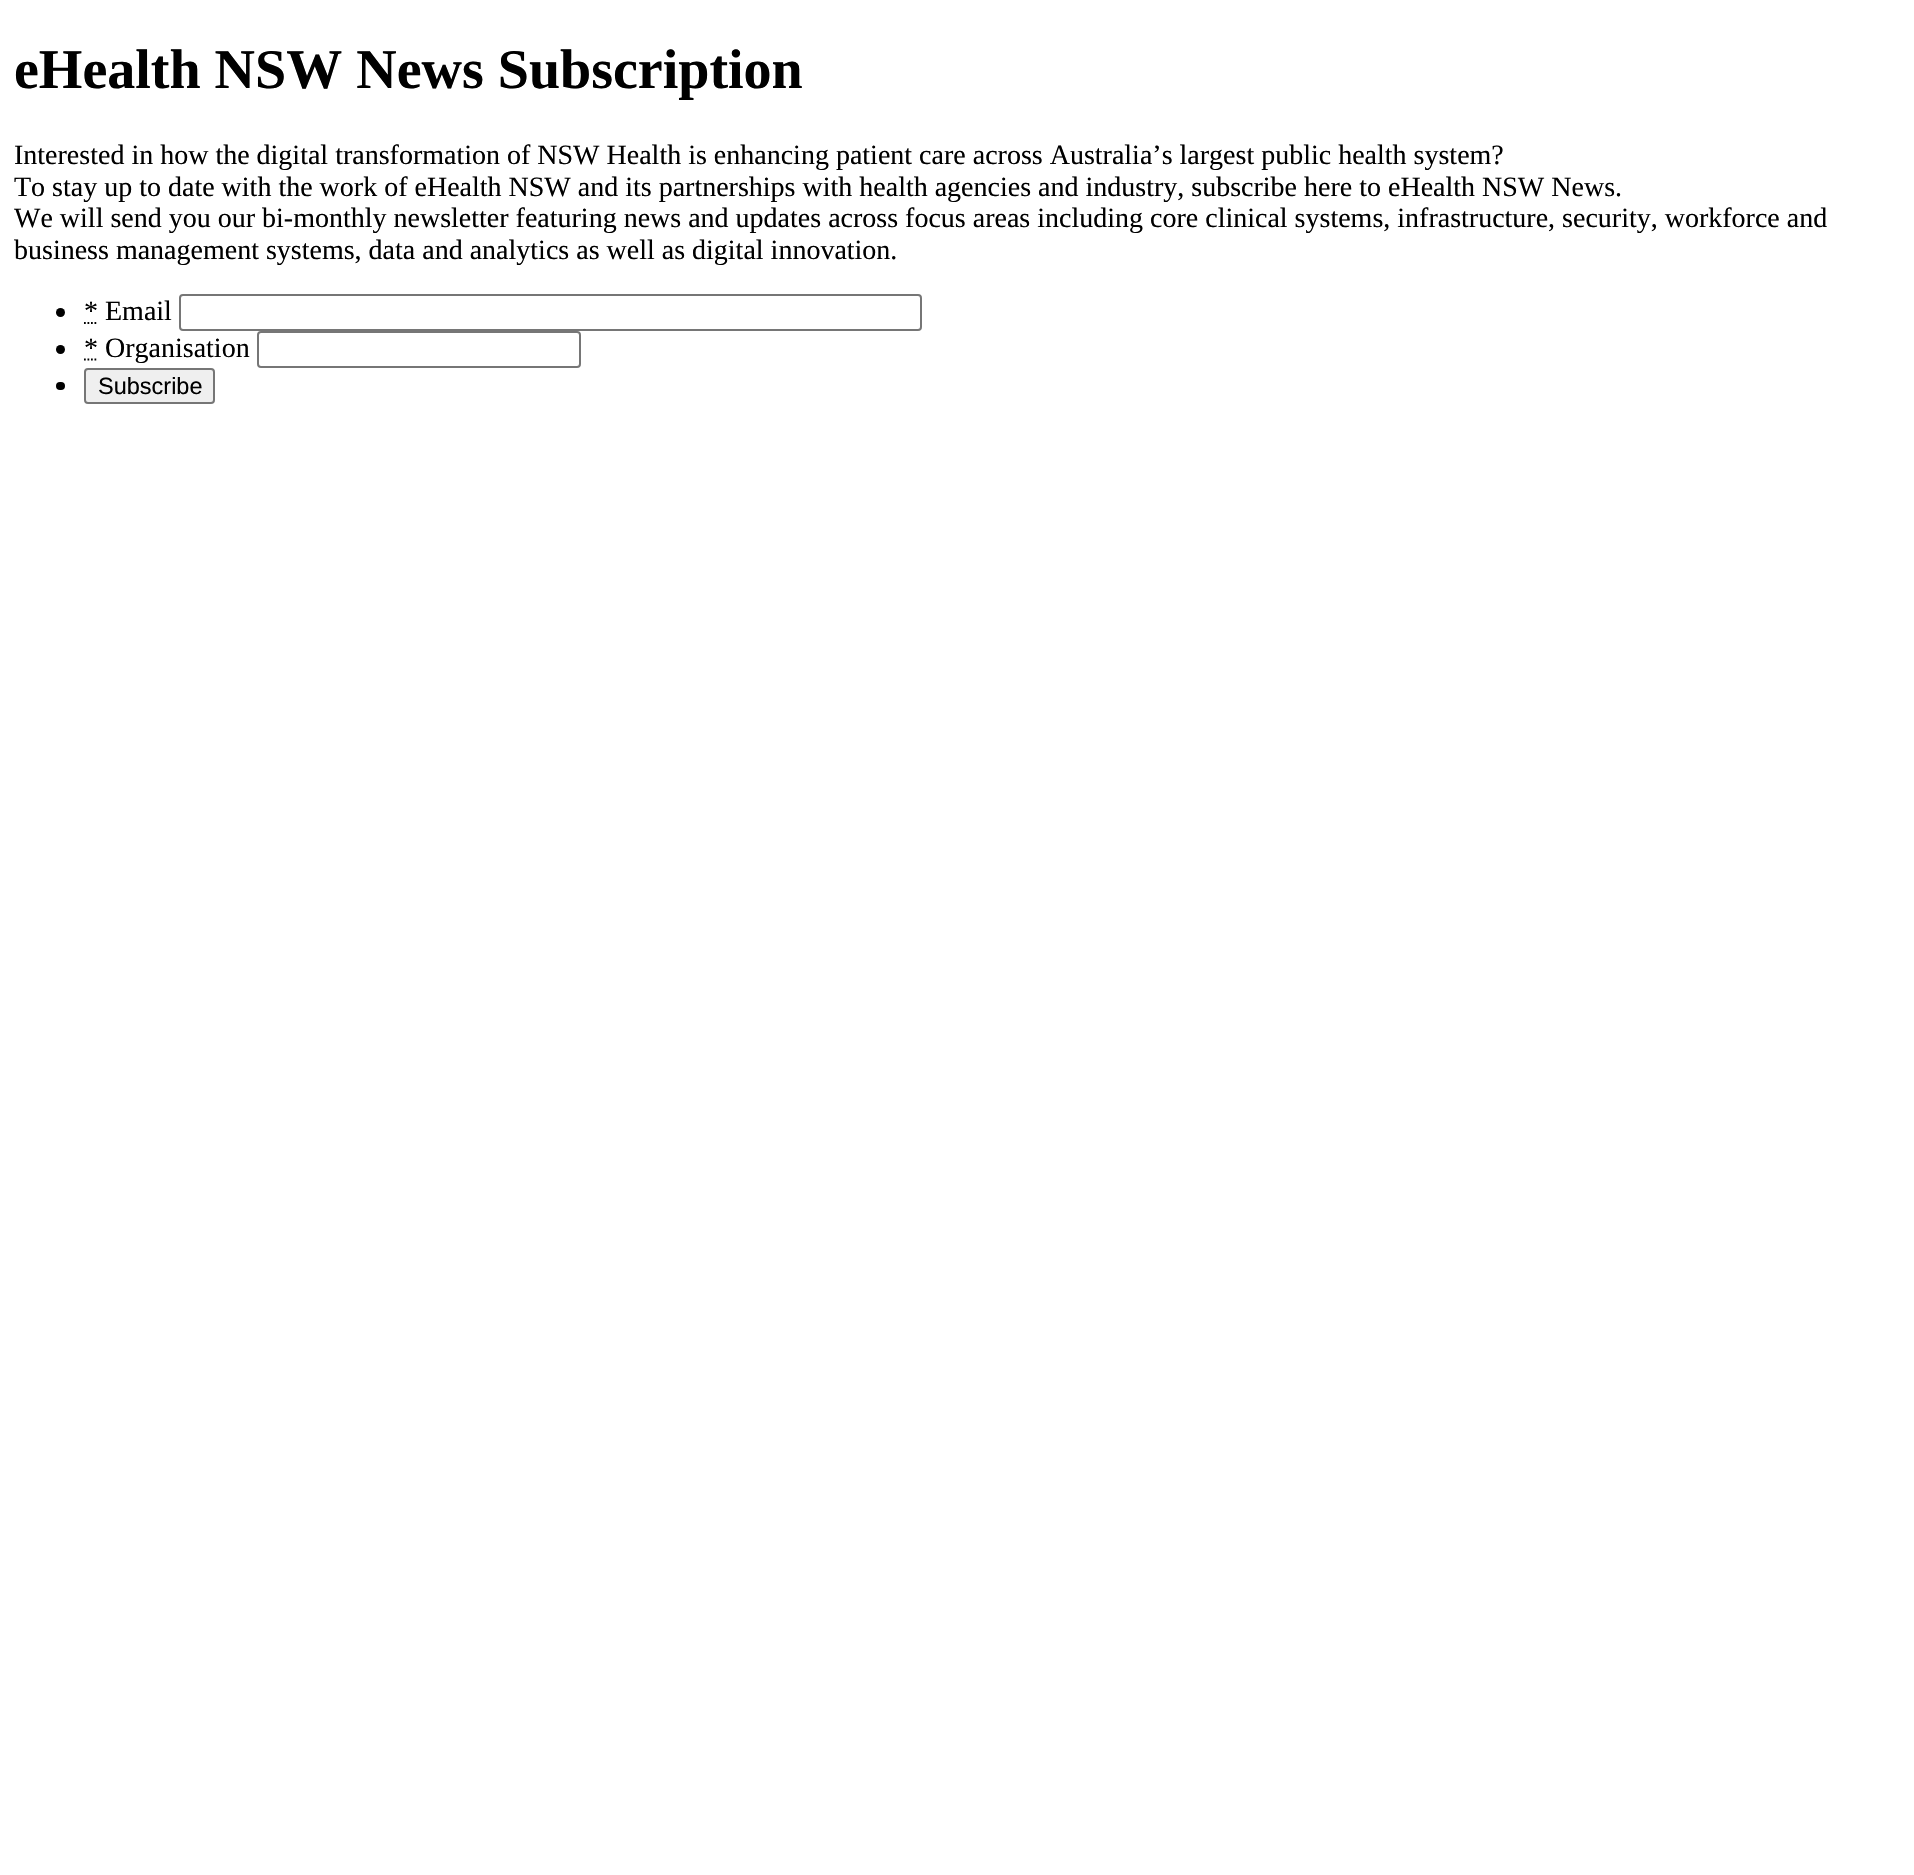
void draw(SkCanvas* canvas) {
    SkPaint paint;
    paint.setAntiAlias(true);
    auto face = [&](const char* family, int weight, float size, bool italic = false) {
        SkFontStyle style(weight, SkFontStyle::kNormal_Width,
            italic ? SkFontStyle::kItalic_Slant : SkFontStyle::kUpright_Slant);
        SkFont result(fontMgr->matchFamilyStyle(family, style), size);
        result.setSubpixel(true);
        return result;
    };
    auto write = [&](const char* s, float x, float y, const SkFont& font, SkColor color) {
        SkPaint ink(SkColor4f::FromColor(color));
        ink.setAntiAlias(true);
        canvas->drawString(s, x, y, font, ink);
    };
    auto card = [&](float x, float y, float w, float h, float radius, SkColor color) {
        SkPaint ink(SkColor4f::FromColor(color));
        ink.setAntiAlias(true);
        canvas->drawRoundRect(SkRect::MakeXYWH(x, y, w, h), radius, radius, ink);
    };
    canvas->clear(SK_ColorWHITE);
    auto kFont1 = face("Liberation Serif", 700, 56);
    write("eHealth NSW News Subscription", 14, 88, kFont1, SK_ColorBLACK);
    auto kFont2 = face("Liberation Serif", 400, 28);
    write("Interested in how the digital transformation of NSW Health is enhancing patient care across Australia’s largest public health system?", 14, 164, kFont2, SK_ColorBLACK);
    write("To stay up to date with the work of eHealth NSW and its partnerships with health agencies and industry, subscribe here to eHealth NSW News.", 14, 196, kFont2, SK_ColorBLACK);
    write("We will send you our bi-monthly newsletter featuring news and updates across focus areas including core clinical systems, infrastructure, security, workforce and", 14, 227, kFont2, SK_ColorBLACK);
    write("business management systems, data and analytics as well as digital innovation.", 14, 259, kFont2, SK_ColorBLACK);
    paint.setColor(SK_ColorBLACK);
    canvas->drawCircle(60.5f, 312.5f, 4.5f, paint);
    write("* Email", 84, 320, kFont2, SK_ColorBLACK);
    paint.setStyle(SkPaint::kStroke_Style);
    paint.setStrokeWidth(1.8f);
    paint.setPathEffect(SkDashPathEffect::Make({{1.75f, 1.75f}}, 0));
    canvas->drawPath(SkPathBuilder().moveTo(84, 323).lineTo(98, 323).detach(), paint);
    paint.setPathEffect(nullptr);
    paint.setStrokeWidth(2);
    paint.setColor(SkColorSetRGB(118, 118, 118));
    canvas->drawRoundRect(SkRect::MakeXYWH(180, 295, 741, 35), 3, 3, paint);
    paint.setStyle(SkPaint::kFill_Style);
    paint.setColor(SK_ColorBLACK);
    canvas->drawCircle(60.5f, 349.5f, 4.5f, paint);
    paint.setStyle(SkPaint::kStroke_Style);
    paint.setStrokeWidth(1.8f);
    paint.setPathEffect(SkDashPathEffect::Make({{1.75f, 1.75f}}, 0));
    canvas->drawPath(SkPathBuilder().moveTo(84, 359.5f).lineTo(98, 359.5f).detach(), paint);
    paint.setPathEffect(nullptr);
    write("* Organisation", 84, 357, kFont2, SK_ColorBLACK);
    paint.setStrokeWidth(2);
    paint.setColor(SkColorSetRGB(118, 118, 118));
    canvas->drawRoundRect(SkRect::MakeXYWH(258, 332, 322, 35), 3, 3, paint);
    card(56, 382, 9, 8, 4, SK_ColorBLACK);
    paint.setStyle(SkPaint::kFill_Style);
    paint.setColor(SkColorSetRGB(239, 239, 239));
    canvas->drawRoundRect(SkRect::MakeXYWH(85, 369, 129, 34), 3, 3, paint);
    paint.setStyle(SkPaint::kStroke_Style);
    paint.setColor(SkColorSetRGB(118, 118, 118));
    canvas->drawRoundRect(SkRect::MakeXYWH(85, 369, 129, 34), 3, 3, paint);
    auto kFont3 = face("Liberation Sans", 400, 23.5f);
    write("Subscribe", 98, 394, kFont3, SK_ColorBLACK);
}
